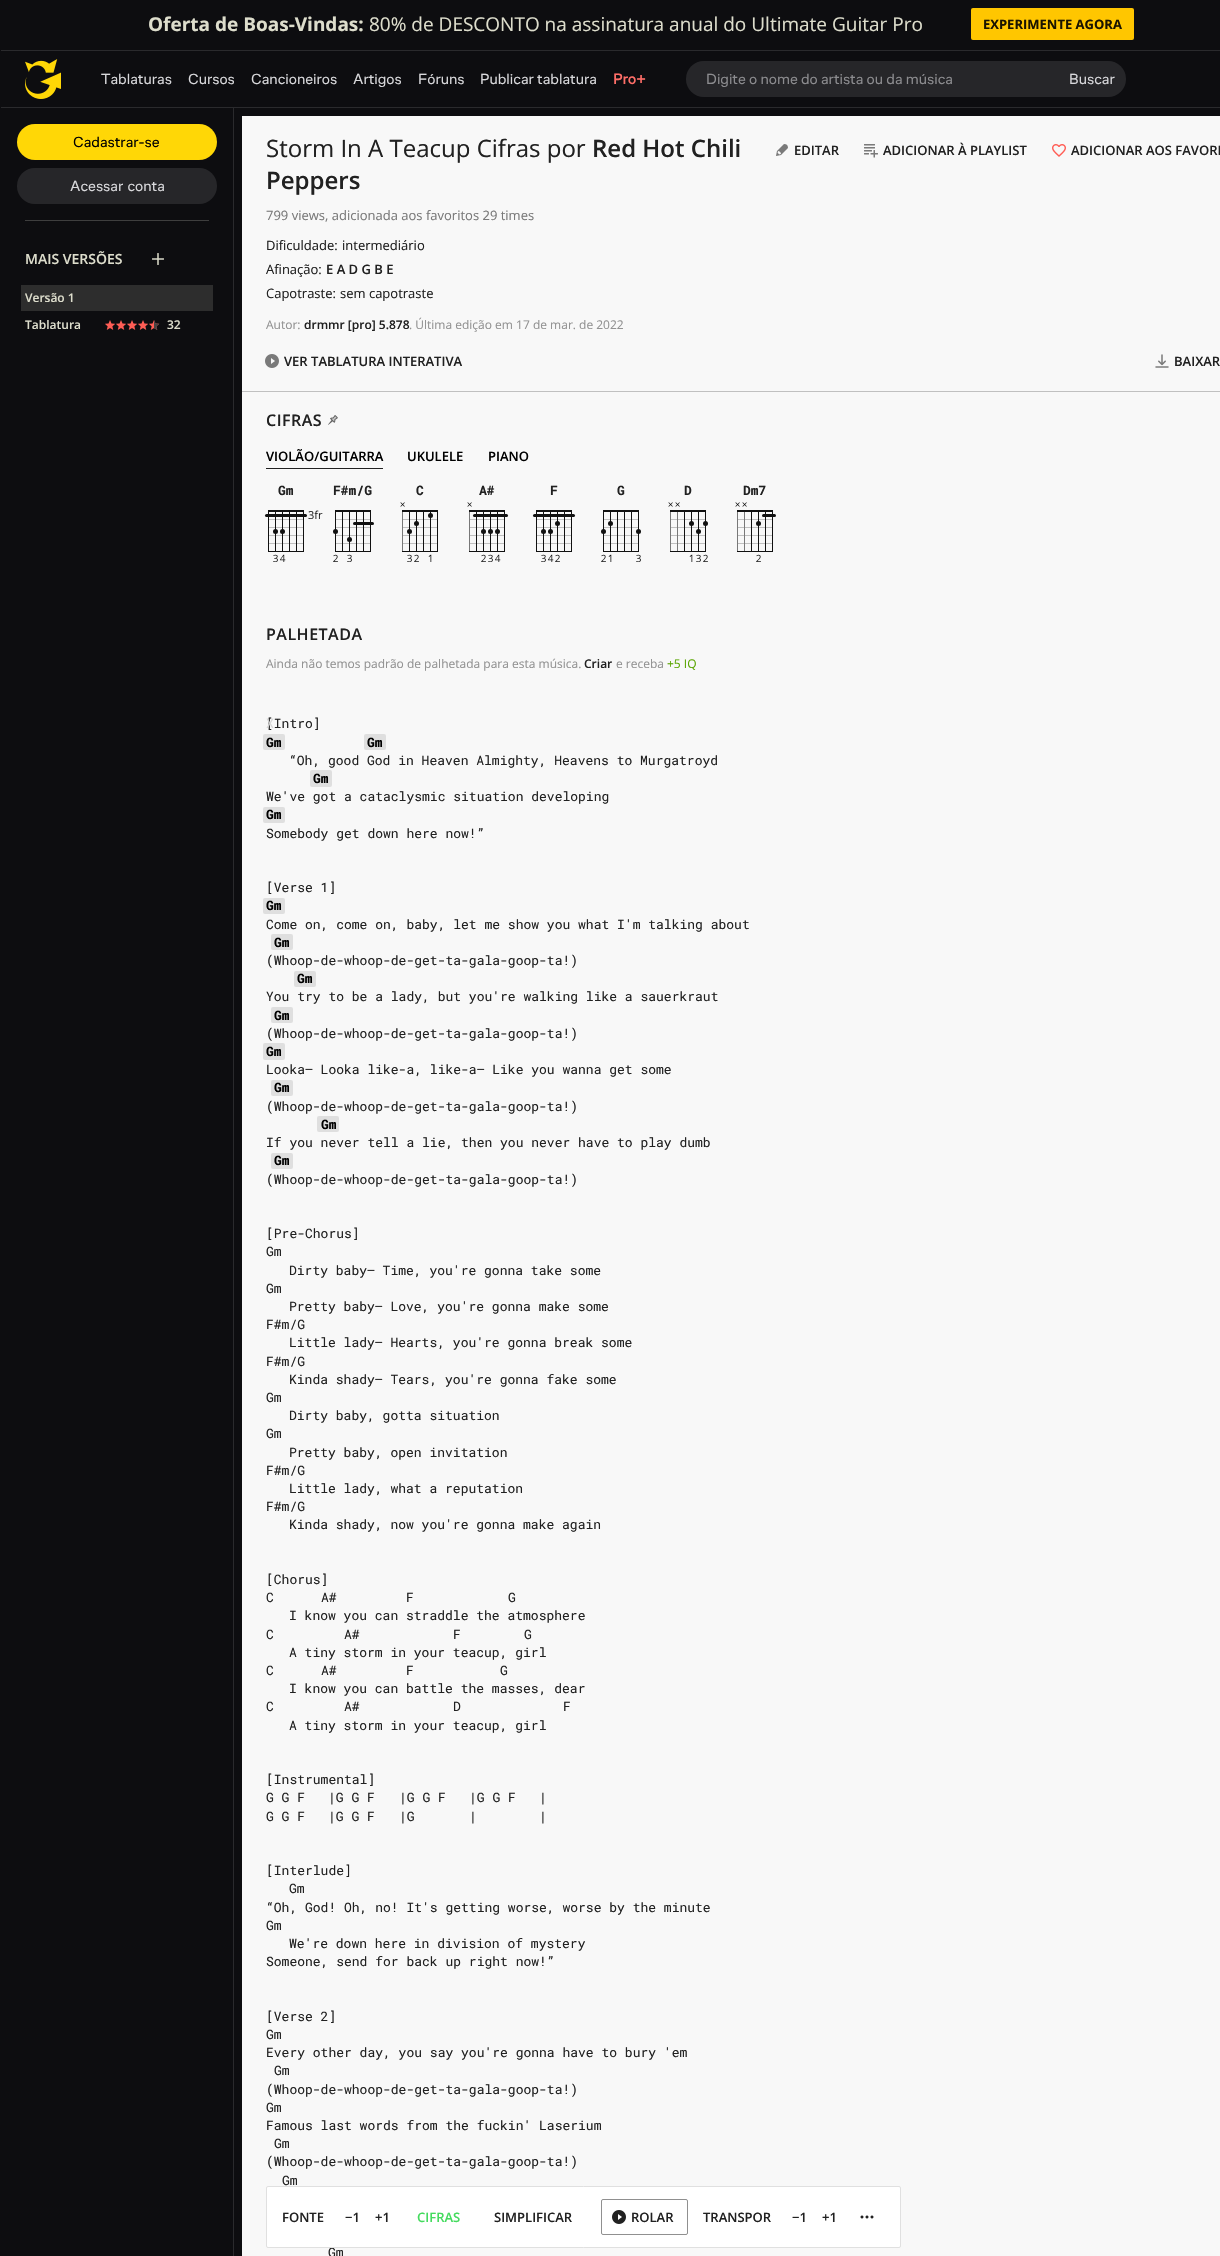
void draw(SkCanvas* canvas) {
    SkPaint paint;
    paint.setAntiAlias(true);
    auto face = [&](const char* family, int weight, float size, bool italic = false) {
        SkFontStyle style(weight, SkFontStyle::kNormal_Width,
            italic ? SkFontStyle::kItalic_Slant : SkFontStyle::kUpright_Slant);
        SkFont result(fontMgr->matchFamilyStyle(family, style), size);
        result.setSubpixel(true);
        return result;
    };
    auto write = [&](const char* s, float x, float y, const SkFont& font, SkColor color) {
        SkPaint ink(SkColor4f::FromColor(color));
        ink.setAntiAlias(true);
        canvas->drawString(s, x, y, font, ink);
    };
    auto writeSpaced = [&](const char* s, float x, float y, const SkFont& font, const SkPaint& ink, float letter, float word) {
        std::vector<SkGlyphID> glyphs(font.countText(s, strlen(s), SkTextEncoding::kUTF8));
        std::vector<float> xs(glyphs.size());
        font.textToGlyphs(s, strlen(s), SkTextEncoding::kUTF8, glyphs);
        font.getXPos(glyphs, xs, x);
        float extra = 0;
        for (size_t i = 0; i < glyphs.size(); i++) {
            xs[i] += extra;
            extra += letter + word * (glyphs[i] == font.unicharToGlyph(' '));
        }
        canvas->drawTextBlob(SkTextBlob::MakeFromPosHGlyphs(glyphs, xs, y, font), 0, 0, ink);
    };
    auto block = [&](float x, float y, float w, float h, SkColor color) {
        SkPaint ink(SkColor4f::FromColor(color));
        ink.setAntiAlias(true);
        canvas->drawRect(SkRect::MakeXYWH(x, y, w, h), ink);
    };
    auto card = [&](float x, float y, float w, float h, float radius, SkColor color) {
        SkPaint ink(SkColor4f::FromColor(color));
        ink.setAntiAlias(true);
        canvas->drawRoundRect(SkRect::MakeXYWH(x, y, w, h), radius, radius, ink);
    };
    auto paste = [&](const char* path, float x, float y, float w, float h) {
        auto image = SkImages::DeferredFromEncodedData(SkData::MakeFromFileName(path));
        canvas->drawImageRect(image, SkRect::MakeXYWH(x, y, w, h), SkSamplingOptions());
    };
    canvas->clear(SkColorSetRGB(13, 13, 16));
    block(1, 50, 1219, 1, SkColorSetRGB(42, 42, 45));
    auto kFont1 = face("Open Sans", 700, 19);
    write("Oferta de Boas-Vindas:", 148, 31, kFont1, SkColorSetRGB(221, 221, 204));
    auto kFont2 = face("Open Sans", 400, 19);
    write("80% de DESCONTO na assinatura anual do Ultimate Guitar Pro", 369, 31, kFont2, SkColorSetRGB(221, 221, 204));
    card(971, 8, 163, 32, 2, SkColorSetRGB(255, 198, 0));
    auto kFont3 = face("Open Sans", 700, 13);
    write("EXPERIMENTE AGORA", 983, 29, kFont3, SkColorSetRGB(26, 20, 0));
    block(1, 107, 1219, 1, SkColorSetRGB(42, 42, 45));
    paste("pic1.png", 25, 59, 36, 40);
    auto kFont4 = face("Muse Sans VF", 400, 15);
    write("Tablaturas", 101, 84, kFont4, SkColorSetRGB(217, 217, 220));
    write("Cursos", 188, 84, kFont4, SkColorSetRGB(217, 217, 220));
    write("Cancioneiros", 251, 84, kFont4, SkColorSetRGB(217, 217, 220));
    write("Artigos", 353, 84, kFont4, SkColorSetRGB(217, 217, 220));
    write("Fóruns", 418, 84, kFont4, SkColorSetRGB(217, 217, 220));
    write("Publicar tablatura", 480, 84, kFont4, SkColorSetRGB(217, 217, 220));
    auto kFont5 = face("Muse Sans VF", 700, 15);
    write("Pro+", 613, 84, kFont5, SkColorSetRGB(255, 110, 104));
    card(686, 61, 440, 36, 18, SkColorSetRGB(38, 38, 41));
    write("Digite o nome do artista ou da música", 706, 84, kFont4, SkColorSetRGB(140, 140, 143));
    write("Buscar", 1069, 84, kFont4, SkColorSetRGB(217, 217, 220));
    card(17, 124, 200, 36, 18, SkColorSetRGB(255, 215, 6));
    write("Cadastrar-se", 73, 147, kFont4, SK_ColorBLACK);
    card(17, 168, 200, 36, 18, SkColorSetRGB(38, 38, 41));
    paint.setColor(SkColorSetRGB(217, 217, 220));
    writeSpaced("Acessar conta", 70, 191, kFont4, paint, 0, 1);
    block(25, 220, 184, 1, SkColorSetRGB(62, 62, 62));
    auto kFont6 = face("Open Sans", 600, 14);
    write("MAIS VERSÕES", 25, 264, kFont6, SkColorSetRGB(221, 221, 204));
    paste("pic2.png", 152, 253, 12, 12);
    block(21, 285, 192, 26, SkColorSetRGB(45, 45, 45));
    auto kFont7 = face("Open Sans", 600, 12);
    write("Versão 1", 25, 302, kFont7, SkColorSetRGB(221, 221, 204));
    write("Tablatura", 25, 329, kFont7, SkColorSetRGB(221, 221, 204));
    paste("pic3.png", 105, 320, 11, 10);
    paste("pic3.png", 116, 320, 11, 10);
    paste("pic3.png", 127, 320, 11, 10);
    paste("pic3.png", 138, 320, 11, 10);
    paste("pic4.png", 149, 320, 11, 10);
    write("32", 167, 329, kFont7, SkColorSetRGB(221, 221, 204));
    block(233, 108, 1, 2148, SkColorSetRGB(42, 42, 45));
    block(242, 116, 978, 2140, SkColorSetRGB(248, 248, 248));
    block(242, 391, 978, 1, SkColorSetRGB(192, 192, 192));
    auto kFont8 = face("Open Sans", 400, 24);
    write("Storm In A Teacup Cifras por", 266, 157, kFont8, SkColorSetRGB(33, 33, 33));
    auto kFont9 = face("Open Sans", 600, 24);
    write("Red Hot Chili", 592, 157, kFont9, SkColorSetRGB(33, 33, 33));
    write("Peppers", 266, 189, kFont9, SkColorSetRGB(33, 33, 33));
    paste("pic5.png", 776, 144, 12, 12);
    auto kFont10 = face("Open Sans", 600, 13);
    write("EDITAR", 794, 155, kFont10, SkColorSetRGB(33, 33, 33));
    paste("pic6.png", 864, 144, 14, 14);
    write("ADICIONAR À PLAYLIST", 883, 155, kFont10, SkColorSetRGB(33, 33, 33));
    paste("pic7.png", 1052, 144, 14, 13);
    write("ADICIONAR AOS FAVORI", 1071, 155, kFont10, SkColorSetRGB(33, 33, 33));
    auto kFont11 = face("Open Sans", 400, 13);
    write("799 views, adicionada aos favoritos 29 times", 266, 220, kFont11, SkColorSetRGB(122, 122, 122));
    write("Dificuldade:", 266, 250, kFont11, SkColorSetRGB(33, 33, 33));
    write("intermediário", 342, 250, kFont11, SkColorSetRGB(33, 33, 33));
    write("Afinação:", 266, 274, kFont11, SkColorSetRGB(33, 33, 33));
    write("E A D G B E", 326, 274, kFont10, SkColorSetRGB(33, 33, 33));
    write("Capotraste:", 266, 298, kFont11, SkColorSetRGB(33, 33, 33));
    write("sem capotraste", 340, 298, kFont11, SkColorSetRGB(33, 33, 33));
    auto kFont12 = face("Open Sans", 400, 12);
    write("Autor:", 266, 329, kFont12, SkColorSetRGB(146, 146, 146));
    write("drmmr [pro] 5.878", 304, 329, kFont7, SkColorSetRGB(33, 33, 33));
    write(". Última edição em 17 de mar. de 2022", 409, 329, kFont12, SkColorSetRGB(146, 146, 146));
    paste("pic8.png", 265, 354, 14, 14);
    write("VER TABLATURA INTERATIVA", 284, 366, kFont10, SkColorSetRGB(33, 33, 33));
    paste("pic9.png", 1155, 354, 14, 14);
    write("BAIXAR", 1174, 366, kFont10, SkColorSetRGB(33, 33, 33));
    auto kFont13 = face("Open Sans", 600, 16);
    paint.setColor(SkColorSetRGB(33, 33, 33));
    writeSpaced("CIFRAS", 266, 426, kFont13, paint, 0.5f, 0);
    paste("pic10.png", 328, 415, 10, 10);
    write("VIOLÃO/GUITARRA", 266, 461, kFont10, SK_ColorBLACK);
    block(266, 468, 117, 1, SkColorSetRGB(33, 33, 33));
    write("UKULELE", 407, 461, kFont10, SK_ColorBLACK);
    write("PIANO", 488, 461, kFont10, SK_ColorBLACK);
    auto kFont14 = face("Roboto Mono", 700, 13);
    write("Gm", 278, 495, kFont14, SkColorSetRGB(33, 33, 33));
    paste("pic11.png", 264, 510, 59, 52);
    write("F#m/G", 333, 495, kFont14, SkColorSetRGB(33, 33, 33));
    paste("pic12.png", 333, 510, 41, 52);
    write("C", 416, 495, kFont14, SkColorSetRGB(33, 33, 33));
    paste("pic13.png", 400, 502, 38, 60);
    write("A#", 479, 495, kFont14, SkColorSetRGB(33, 33, 33));
    paste("pic14.png", 467, 502, 42, 60);
    write("F", 550, 495, kFont14, SkColorSetRGB(33, 33, 33));
    paste("pic15.png", 532, 510, 44, 52);
    write("G", 617, 495, kFont14, SkColorSetRGB(33, 33, 33));
    paste("pic16.png", 601, 510, 40, 52);
    write("D", 684, 495, kFont14, SkColorSetRGB(33, 33, 33));
    paste("pic17.png", 668, 502, 40, 60);
    write("Dm7", 743, 495, kFont14, SkColorSetRGB(33, 33, 33));
    paste("pic18.png", 735, 502, 41, 60);
    writeSpaced("PALHETADA", 266, 640, kFont13, paint, 0.5f, 0);
    write("Ainda não temos padrão de palhetada para esta música.", 266, 668, kFont12, SkColorSetRGB(146, 146, 146));
    write("Criar", 584, 668, kFont7, SkColorSetRGB(33, 33, 33));
    write("e receba", 616, 668, kFont12, SkColorSetRGB(146, 146, 146));
    write("+5 IQ", 667, 668, kFont12, SkColorSetRGB(89, 165, 0));
    auto kFont15 = face("Roboto Mono", 400, 13);
    write("[Intro]", 266, 728, kFont15, SkColorSetRGB(33, 33, 33));
    write("X", 266, 728, kFont15, SkColorSetRGB(214, 214, 214));
    card(263, 734, 22, 16, 2, SkColorSetARGB(26, 0, 0, 0));
    write("Gm", 266, 747, kFont14, SK_ColorBLACK);
    card(364, 734, 22, 16, 2, SkColorSetARGB(26, 0, 0, 0));
    write("Gm", 367, 747, kFont14, SK_ColorBLACK);
    write("“Oh, good God in Heaven Almighty, Heavens to Murgatroyd", 289, 765, kFont15, SkColorSetRGB(33, 33, 33));
    card(310, 770, 22, 17, 2, SkColorSetARGB(26, 0, 0, 0));
    write("Gm", 313, 783, kFont14, SK_ColorBLACK);
    write("We've got a cataclysmic situation developing", 266, 801, kFont15, SkColorSetRGB(33, 33, 33));
    card(263, 807, 22, 16, 2, SkColorSetARGB(26, 0, 0, 0));
    write("Gm", 266, 819, kFont14, SK_ColorBLACK);
    write("Somebody get down here now!”", 266, 838, kFont15, SkColorSetRGB(33, 33, 33));
    write("[Verse 1]", 266, 892, kFont15, SkColorSetRGB(33, 33, 33));
    card(263, 898, 22, 16, 2, SkColorSetARGB(26, 0, 0, 0));
    write("Gm", 266, 910, kFont14, SK_ColorBLACK);
    write("Come on, come on, baby, let me show you what I'm talking about", 266, 929, kFont15, SkColorSetRGB(33, 33, 33));
    card(271, 934, 22, 16, 2, SkColorSetARGB(26, 0, 0, 0));
    write("Gm", 274, 947, kFont14, SK_ColorBLACK);
    write("(Whoop-de-whoop-de-get-ta-gala-goop-ta!)", 266, 965, kFont15, SkColorSetRGB(33, 33, 33));
    card(294, 971, 22, 16, 2, SkColorSetARGB(26, 0, 0, 0));
    write("Gm", 297, 983, kFont14, SK_ColorBLACK);
    write("You try to be a lady, but you're walking like a sauerkraut", 266, 1001, kFont15, SkColorSetRGB(33, 33, 33));
    card(271, 1007, 22, 16, 2, SkColorSetARGB(26, 0, 0, 0));
    write("Gm", 274, 1020, kFont14, SK_ColorBLACK);
    write("(Whoop-de-whoop-de-get-ta-gala-goop-ta!)", 266, 1038, kFont15, SkColorSetRGB(33, 33, 33));
    card(263, 1043, 22, 17, 2, SkColorSetARGB(26, 0, 0, 0));
    write("Gm", 266, 1056, kFont14, SK_ColorBLACK);
    write("Looka— Looka like-a, like-a— Like you wanna get some", 266, 1074, kFont15, SkColorSetRGB(33, 33, 33));
    card(271, 1080, 22, 16, 2, SkColorSetARGB(26, 0, 0, 0));
    write("Gm", 274, 1092, kFont14, SK_ColorBLACK);
    write("(Whoop-de-whoop-de-get-ta-gala-goop-ta!)", 266, 1111, kFont15, SkColorSetRGB(33, 33, 33));
    card(317, 1116, 22, 16, 2, SkColorSetARGB(26, 0, 0, 0));
    write("Gm", 321, 1129, kFont14, SK_ColorBLACK);
    write("If you never tell a lie, then you never have to play dumb", 266, 1147, kFont15, SkColorSetRGB(33, 33, 33));
    card(271, 1153, 22, 16, 2, SkColorSetARGB(26, 0, 0, 0));
    write("Gm", 274, 1165, kFont14, SK_ColorBLACK);
    write("(Whoop-de-whoop-de-get-ta-gala-goop-ta!)", 266, 1184, kFont15, SkColorSetRGB(33, 33, 33));
    write("[Pre-Chorus]", 266, 1238, kFont15, SkColorSetRGB(33, 33, 33));
    write("Gm", 266, 1256, kFont15, SkColorSetRGB(33, 33, 33));
    write("Dirty baby— Time, you're gonna take some", 289, 1275, kFont15, SkColorSetRGB(33, 33, 33));
    write("Gm", 266, 1293, kFont15, SkColorSetRGB(33, 33, 33));
    write("Pretty baby— Love, you're gonna make some", 289, 1311, kFont15, SkColorSetRGB(33, 33, 33));
    write("F#m/G", 266, 1329, kFont15, SkColorSetRGB(33, 33, 33));
    write("Little lady— Hearts, you're gonna break some", 289, 1347, kFont15, SkColorSetRGB(33, 33, 33));
    write("F#m/G", 266, 1366, kFont15, SkColorSetRGB(33, 33, 33));
    write("Kinda shady— Tears, you're gonna fake some", 289, 1384, kFont15, SkColorSetRGB(33, 33, 33));
    write("Gm", 266, 1402, kFont15, SkColorSetRGB(33, 33, 33));
    write("Dirty baby, gotta situation", 289, 1420, kFont15, SkColorSetRGB(33, 33, 33));
    write("Gm", 266, 1438, kFont15, SkColorSetRGB(33, 33, 33));
    write("Pretty baby, open invitation", 289, 1457, kFont15, SkColorSetRGB(33, 33, 33));
    write("F#m/G", 266, 1475, kFont15, SkColorSetRGB(33, 33, 33));
    write("Little lady, what a reputation", 289, 1493, kFont15, SkColorSetRGB(33, 33, 33));
    write("F#m/G", 266, 1511, kFont15, SkColorSetRGB(33, 33, 33));
    write("Kinda shady, now you're gonna make again", 289, 1529, kFont15, SkColorSetRGB(33, 33, 33));
    write("[Chorus]", 266, 1584, kFont15, SkColorSetRGB(33, 33, 33));
    write("C", 266, 1602, kFont15, SkColorSetRGB(33, 33, 33));
    write("A#", 321, 1602, kFont15, SkColorSetRGB(33, 33, 33));
    write("F", 406, 1602, kFont15, SkColorSetRGB(33, 33, 33));
    write("G", 508, 1602, kFont15, SkColorSetRGB(33, 33, 33));
    write("I know you can straddle the atmosphere", 289, 1620, kFont15, SkColorSetRGB(33, 33, 33));
    write("C", 266, 1639, kFont15, SkColorSetRGB(33, 33, 33));
    write("A#", 344, 1639, kFont15, SkColorSetRGB(33, 33, 33));
    write("F", 453, 1639, kFont15, SkColorSetRGB(33, 33, 33));
    write("G", 524, 1639, kFont15, SkColorSetRGB(33, 33, 33));
    write("A tiny storm in your teacup, girl", 289, 1657, kFont15, SkColorSetRGB(33, 33, 33));
    write("C", 266, 1675, kFont15, SkColorSetRGB(33, 33, 33));
    write("A#", 321, 1675, kFont15, SkColorSetRGB(33, 33, 33));
    write("F", 406, 1675, kFont15, SkColorSetRGB(33, 33, 33));
    write("G", 500, 1675, kFont15, SkColorSetRGB(33, 33, 33));
    write("I know you can battle the masses, dear", 289, 1693, kFont15, SkColorSetRGB(33, 33, 33));
    write("C", 266, 1711, kFont15, SkColorSetRGB(33, 33, 33));
    write("A#", 344, 1711, kFont15, SkColorSetRGB(33, 33, 33));
    write("D", 453, 1711, kFont15, SkColorSetRGB(33, 33, 33));
    write("F", 563, 1711, kFont15, SkColorSetRGB(33, 33, 33));
    write("A tiny storm in your teacup, girl", 289, 1730, kFont15, SkColorSetRGB(33, 33, 33));
    write("[Instrumental]", 266, 1784, kFont15, SkColorSetRGB(33, 33, 33));
    write("G G F", 266, 1802, kFont15, SkColorSetRGB(33, 33, 33));
    write("|G G F", 328, 1802, kFont15, SkColorSetRGB(33, 33, 33));
    write("|G G F", 399, 1802, kFont15, SkColorSetRGB(33, 33, 33));
    write("|G G F", 469, 1802, kFont15, SkColorSetRGB(33, 33, 33));
    write("|", 539, 1802, kFont15, SkColorSetRGB(33, 33, 33));
    write("G G F", 266, 1821, kFont15, SkColorSetRGB(33, 33, 33));
    write("|G G F", 328, 1821, kFont15, SkColorSetRGB(33, 33, 33));
    write("|G", 399, 1821, kFont15, SkColorSetRGB(33, 33, 33));
    write("|", 469, 1821, kFont15, SkColorSetRGB(33, 33, 33));
    write("|", 539, 1821, kFont15, SkColorSetRGB(33, 33, 33));
    write("[Interlude]", 266, 1875, kFont15, SkColorSetRGB(33, 33, 33));
    write("Gm", 289, 1893, kFont15, SkColorSetRGB(33, 33, 33));
    write("“Oh, God! Oh, no! It's getting worse, worse by the minute", 266, 1912, kFont15, SkColorSetRGB(33, 33, 33));
    write("Gm", 266, 1930, kFont15, SkColorSetRGB(33, 33, 33));
    write("We're down here in division of mystery", 289, 1948, kFont15, SkColorSetRGB(33, 33, 33));
    write("Someone, send for back up right now!”", 266, 1966, kFont15, SkColorSetRGB(33, 33, 33));
    write("[Verse 2]", 266, 2021, kFont15, SkColorSetRGB(33, 33, 33));
    write("Gm", 266, 2039, kFont15, SkColorSetRGB(33, 33, 33));
    write("Every other day, you say you're gonna have to bury 'em", 266, 2057, kFont15, SkColorSetRGB(33, 33, 33));
    write("Gm", 274, 2075, kFont15, SkColorSetRGB(33, 33, 33));
    write("(Whoop-de-whoop-de-get-ta-gala-goop-ta!)", 266, 2094, kFont15, SkColorSetRGB(33, 33, 33));
    write("Gm", 266, 2112, kFont15, SkColorSetRGB(33, 33, 33));
    write("Famous last words from the fuckin' Laserium", 266, 2130, kFont15, SkColorSetRGB(33, 33, 33));
    write("Gm", 274, 2148, kFont15, SkColorSetRGB(33, 33, 33));
    write("(Whoop-de-whoop-de-get-ta-gala-goop-ta!)", 266, 2166, kFont15, SkColorSetRGB(33, 33, 33));
    write("Gm", 282, 2185, kFont15, SkColorSetRGB(33, 33, 33));
    write("Gm", 328, 2257, kFont15, SkColorSetRGB(33, 33, 33));
    paint.setColor(SkColorSetARGB(230, 255, 255, 255));
    canvas->drawRoundRect(SkRect::MakeXYWH(266.5f, 2186.5f, 634, 61), 1.5f, 1.5f, paint);
    paint.setStyle(SkPaint::kStroke_Style);
    paint.setStrokeWidth(1);
    paint.setColor(SkColorSetRGB(224, 224, 224));
    canvas->drawRoundRect(SkRect::MakeXYWH(266.5f, 2186.5f, 634, 61), 1.5f, 1.5f, paint);
    write("FONTE", 282, 2222, kFont10, SkColorSetRGB(33, 33, 33));
    write("−1", 345, 2222, kFont10, SkColorSetRGB(33, 33, 33));
    write("+1", 375, 2222, kFont10, SkColorSetRGB(33, 33, 33));
    write("CIFRAS", 417, 2222, kFont10, SkColorSetRGB(68, 219, 94));
    write("SIMPLIFICAR", 494, 2222, kFont10, SkColorSetRGB(33, 33, 33));
    paint.setColor(SkColorSetARGB(128, 33, 33, 33));
    canvas->drawRoundRect(SkRect::MakeXYWH(601.5f, 2199.5f, 86, 35), 1.5f, 1.5f, paint);
    paste("pic19.png", 612, 2210, 14, 14);
    write("ROLAR", 631, 2222, kFont10, SkColorSetRGB(33, 33, 33));
    write("TRANSPOR", 703, 2222, kFont10, SkColorSetRGB(33, 33, 33));
    write("−1", 792, 2222, kFont10, SkColorSetRGB(33, 33, 33));
    write("+1", 822, 2222, kFont10, SkColorSetRGB(33, 33, 33));
    paste("pic20.png", 860, 2215, 14, 4);
}
